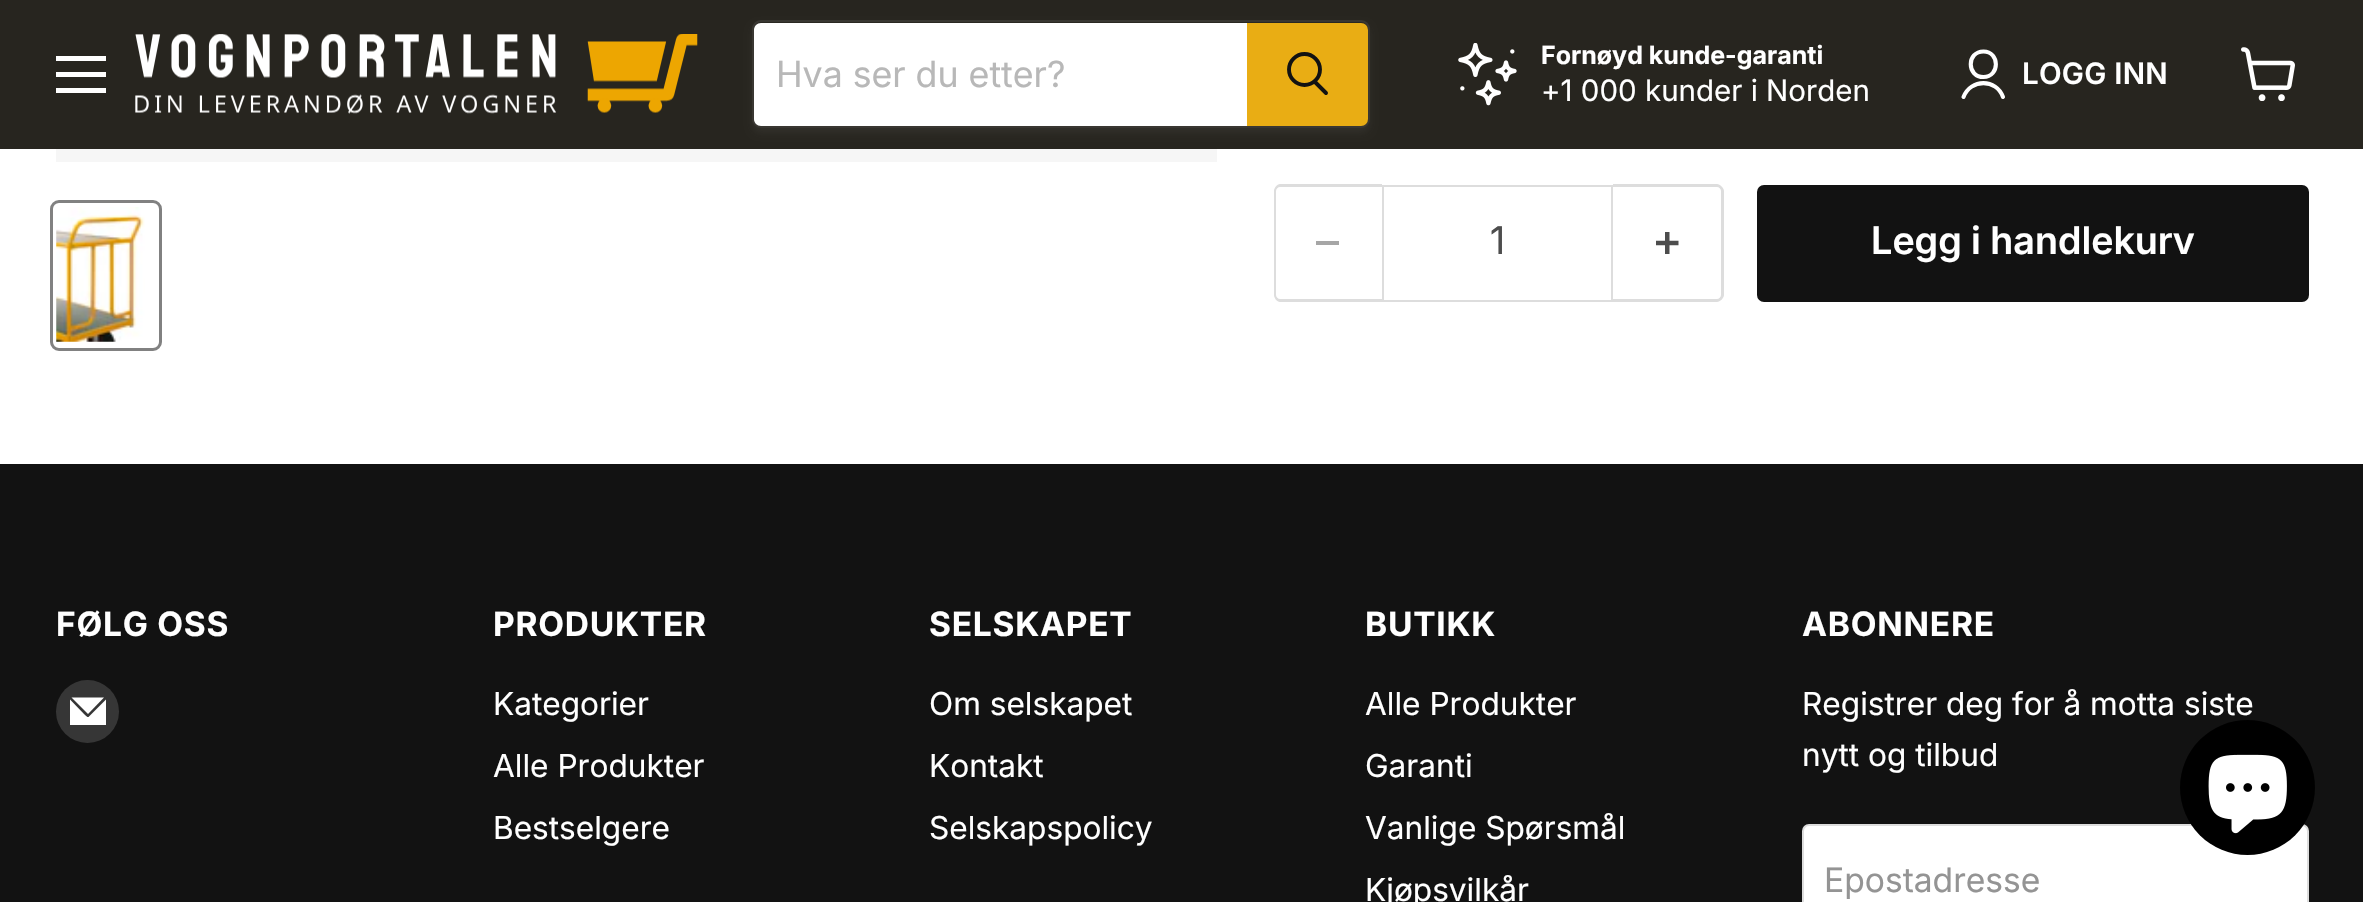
void draw(SkCanvas* canvas) {
    SkPaint paint;
    paint.setAntiAlias(true);
    auto face = [&](const char* family, int weight, float size, bool italic = false) {
        SkFontStyle style(weight, SkFontStyle::kNormal_Width,
            italic ? SkFontStyle::kItalic_Slant : SkFontStyle::kUpright_Slant);
        SkFont result(fontMgr->matchFamilyStyle(family, style), size);
        result.setSubpixel(true);
        return result;
    };
    auto write = [&](const char* s, float x, float y, const SkFont& font, SkColor color) {
        SkPaint ink(SkColor4f::FromColor(color));
        ink.setAntiAlias(true);
        canvas->drawString(s, x, y, font, ink);
    };
    auto writeSpaced = [&](const char* s, float x, float y, const SkFont& font, const SkPaint& ink, float letter, float word) {
        std::vector<SkGlyphID> glyphs(font.countText(s, strlen(s), SkTextEncoding::kUTF8));
        std::vector<float> xs(glyphs.size());
        font.textToGlyphs(s, strlen(s), SkTextEncoding::kUTF8, glyphs);
        font.getXPos(glyphs, xs, x);
        float extra = 0;
        for (size_t i = 0; i < glyphs.size(); i++) {
            xs[i] += extra;
            extra += letter + word * (glyphs[i] == font.unicharToGlyph(' '));
        }
        canvas->drawTextBlob(SkTextBlob::MakeFromPosHGlyphs(glyphs, xs, y, font), 0, 0, ink);
    };
    auto block = [&](float x, float y, float w, float h, SkColor color) {
        SkPaint ink(SkColor4f::FromColor(color));
        ink.setAntiAlias(true);
        canvas->drawRect(SkRect::MakeXYWH(x, y, w, h), ink);
    };
    auto paste = [&](const char* path, float x, float y, float w, float h) {
        auto image = SkImages::DeferredFromEncodedData(SkData::MakeFromFileName(path));
        canvas->drawImageRect(image, SkRect::MakeXYWH(x, y, w, h), SkSamplingOptions());
    };
    canvas->clear(SK_ColorWHITE);
    block(0, 0, 2363, 149, SkColorSetRGB(39, 37, 31));
    block(56, 56, 50, 5, SK_ColorWHITE);
    block(56, 72, 50, 5, SK_ColorWHITE);
    block(56, 88, 50, 5, SK_ColorWHITE);
    paste("pic1.png", 135, 34, 563, 80);
    paint.setColor(SkColorSetARGB(28, 128, 128, 128));
    paint.setMaskFilter(SkMaskFilter::MakeBlur(kNormal_SkBlurStyle, 3.5f));
    canvas->drawRoundRect(SkRect::MakeXYWH(752, 25, 618, 108), 9, 9, paint);
    paint.setMaskFilter(nullptr);
    paint.setStyle(SkPaint::kStroke_Style);
    paint.setStrokeWidth(2);
    paint.setColor(SkColorSetRGB(57, 55, 50));
    canvas->drawRoundRect(SkRect::MakeXYWH(753, 21, 616, 106), 8, 8, paint);
    paint.setStyle(SkPaint::kFill_Style);
    paint.setColor(SK_ColorWHITE);
    canvas->drawPath(SkPathBuilder().moveTo(761, 23).lineTo(1247, 23).lineTo(1247, 126).lineTo(761, 126).cubicTo(757, 126, 754, 123, 754, 119).lineTo(754, 30).cubicTo(754, 26, 757, 23, 761, 23).close().detach(), paint);
    auto kFont1 = face("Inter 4", 400, 36);
    write("Hva ser du etter?", 776, 87, kFont1, SkColorSetRGB(184, 184, 184));
    paint.setColor(SkColorSetRGB(233, 173, 20));
    canvas->drawPath(SkPathBuilder().moveTo(1248, 24).lineTo(1361, 24).cubicTo(1364.5f, 24, 1367, 26.5f, 1367, 30).lineTo(1367, 119).cubicTo(1367, 122.5f, 1364.5f, 125, 1361, 125).lineTo(1248, 125).close().detach(), paint);
    paint.setStyle(SkPaint::kStroke_Style);
    canvas->drawPath(SkPathBuilder().moveTo(1248, 24).lineTo(1361, 24).cubicTo(1364.5f, 24, 1367, 26.5f, 1367, 30).lineTo(1367, 119).cubicTo(1367, 122.5f, 1364.5f, 125, 1361, 125).lineTo(1248, 125).close().detach(), paint);
    paint.setStrokeWidth(3.9f);
    paint.setStrokeCap(SkPaint::kRound_Cap);
    paint.setColor(SkColorSetRGB(18, 18, 18));
    canvas->drawPath(SkPathBuilder().moveTo(1326, 93).lineTo(1315, 82).detach(), paint);
    paint.setStrokeCap(SkPaint::kButt_Cap);
    canvas->drawCircle(1304.5f, 69.5f, 15.5f, paint);
    paste("pic2.png", 1458, 43, 59, 63);
    auto kFont2 = face("Inter", 700, 25);
    write("Fornøyd kunde-garanti", 1541, 64, kFont2, SK_ColorWHITE);
    auto kFont3 = face("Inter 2", 400, 29.5f);
    write("+1 000 kunder i Norden", 1541, 101, kFont3, SK_ColorWHITE);
    paint.setStrokeWidth(4.1f);
    paint.setStrokeCap(SkPaint::kRound_Cap);
    paint.setStrokeJoin(SkPaint::kRound_Join);
    paint.setColor(SK_ColorWHITE);
    canvas->drawPath(SkPathBuilder().moveTo(1983.5f, 77).cubicTo(2000, 77, 2000, 51.5f, 1983.5f, 51.5f).cubicTo(1966.5f, 51.5f, 1966.5f, 77, 1983.5f, 77).close().moveTo(2003, 97).cubicTo(1996.5f, 78.5f, 1970.5f, 78.5f, 1963.5f, 97).detach(), paint);
    auto kFont4 = face("Inter 2", 600, 29.5f);
    paint.setStyle(SkPaint::kFill_Style);
    writeSpaced("LOGG INN", 2022, 84, kFont4, paint, 0.25f, 0);
    paste("pic3.png", 2241, 47, 54, 54);
    block(56, 149, 1161, 13, SkColorSetRGB(246, 246, 246));
    paint.setStyle(SkPaint::kStroke_Style);
    paint.setStrokeWidth(3);
    paint.setStrokeCap(SkPaint::kButt_Cap);
    paint.setStrokeJoin(SkPaint::kMiter_Join);
    paint.setColor(SkColorSetRGB(129, 129, 129));
    canvas->drawRoundRect(SkRect::MakeXYWH(51.5f, 201.5f, 109, 148), 7.5f, 7.5f, paint);
    paste("pic4.png", 56, 207, 89, 135);
    paint.setStyle(SkPaint::kFill_Style);
    paint.setColor(SkColorSetRGB(221, 221, 221));
    canvas->drawPath(SkPathBuilder(SkPathFillType::kEvenOdd).moveTo(1280, 184).lineTo(1382, 184).lineTo(1382, 302).lineTo(1280, 302).cubicTo(1277, 302, 1274, 298, 1274, 295).lineTo(1274, 191).cubicTo(1274, 188, 1277, 184, 1280, 184).close().moveTo(1280, 187).lineTo(1382, 187).lineTo(1382, 299).lineTo(1280, 299).cubicTo(1278, 299, 1276, 297, 1276, 295).lineTo(1276, 191).cubicTo(1276, 189, 1278, 187, 1280, 187).close().detach(), paint);
    block(1316, 241, 23, 4, SkColorSetRGB(166, 166, 166));
    paint.setStyle(SkPaint::kStroke_Style);
    paint.setStrokeWidth(2);
    canvas->drawRect(SkRect::MakeXYWH(1383, 186, 229, 115), paint);
    auto kFont5 = face("Inter", 400, 38);
    write("1", 1490, 254, kFont5, SkColorSetRGB(77, 77, 77));
    paint.setStyle(SkPaint::kFill_Style);
    canvas->drawPath(SkPathBuilder(SkPathFillType::kEvenOdd).moveTo(1613, 184).lineTo(1717, 184).cubicTo(1720, 184, 1724, 188, 1724, 191).lineTo(1724, 295).cubicTo(1724, 298, 1720, 302, 1717, 302).lineTo(1613, 302).close().moveTo(1613, 187).lineTo(1717, 187).cubicTo(1719, 187, 1721, 189, 1721, 191).lineTo(1721, 295).cubicTo(1721, 297, 1719, 299, 1717, 299).lineTo(1613, 299).close().detach(), paint);
    paste("pic5.png", 1656, 232, 23, 22);
    paint.setColor(SkColorSetRGB(18, 18, 18));
    canvas->drawRoundRect(SkRect::MakeXYWH(1758, 186, 550, 115), 6, 6, paint);
    paint.setStyle(SkPaint::kStroke_Style);
    canvas->drawRoundRect(SkRect::MakeXYWH(1758, 186, 550, 115), 6, 6, paint);
    auto kFont6 = face("Inter", 600, 38);
    write("Legg i handlekurv", 1871, 254, kFont6, SK_ColorWHITE);
    block(0, 464, 2363, 438, SkColorSetRGB(18, 18, 18));
    auto kFont7 = face("Inter", 700, 33.5f);
    paint.setStyle(SkPaint::kFill_Style);
    paint.setColor(SK_ColorWHITE);
    writeSpaced("FØLG OSS", 56, 636, kFont7, paint, 0.75f, 0);
    paint.setColor(SkColorSetRGB(54, 54, 54));
    canvas->drawCircle(87.5f, 711.5f, 31.5f, paint);
    paint.setColor(SK_ColorWHITE);
    canvas->drawPath(SkPathBuilder().moveTo(89, 716.5f).cubicTo(87.5f, 718.5f, 84.5f, 714, 84, 714).lineTo(70, 699.5f).lineTo(70, 725).lineTo(106, 725).lineTo(106, 699.5f).close().detach(), paint);
    canvas->drawPath(SkPathBuilder().moveTo(104, 697.5f).lineTo(71.5f, 697.5f).lineTo(88, 714).close().detach(), paint);
    writeSpaced("PRODUKTER", 493, 636, kFont7, paint, 0.75f, 0);
    auto kFont8 = face("Inter 2", 400, 31.6f);
    write("Kategorier", 493, 715, kFont8, SK_ColorWHITE);
    write("Alle Produkter", 493, 777, kFont8, SK_ColorWHITE);
    write("Bestselgere", 493, 839, kFont8, SK_ColorWHITE);
    writeSpaced("SELSKAPET", 929, 636, kFont7, paint, 0.75f, 0);
    write("Om selskapet", 929, 715, kFont8, SK_ColorWHITE);
    write("Kontakt", 929, 777, kFont8, SK_ColorWHITE);
    write("Selskapspolicy", 929, 839, kFont8, SK_ColorWHITE);
    writeSpaced("BUTIKK", 1365, 636, kFont7, paint, 0.75f, 0);
    write("Alle Produkter", 1365, 715, kFont8, SK_ColorWHITE);
    write("Garanti", 1365, 777, kFont8, SK_ColorWHITE);
    write("Vanlige Spørsmål", 1365, 839, kFont8, SK_ColorWHITE);
    write("Kjøpsvilkår", 1365, 901, kFont8, SK_ColorWHITE);
    writeSpaced("ABONNERE", 1802, 636, kFont7, paint, 0.75f, 0);
    write("Registrer deg for å motta siste", 1802, 715, kFont8, SK_ColorWHITE);
    write("nytt og tilbud", 1802, 766, kFont8, SK_ColorWHITE);
    canvas->drawRoundRect(SkRect::MakeXYWH(1803, 825, 505, 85), 6, 6, paint);
    paint.setStyle(SkPaint::kStroke_Style);
    paint.setColor(SkColorSetRGB(221, 221, 221));
    canvas->drawRoundRect(SkRect::MakeXYWH(1803, 825, 505, 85), 6, 6, paint);
    auto kFont9 = face("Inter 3", 400, 33.75f);
    write("Epostadresse", 1824, 892, kFont9, SkColorSetRGB(148, 148, 148));
    paint.setStyle(SkPaint::kFill_Style);
    paint.setColor(SK_ColorBLACK);
    canvas->drawCircle(2247.5f, 787.5f, 67.5f, paint);
    paste("pic6.png", 2208, 754, 79, 80);
}
